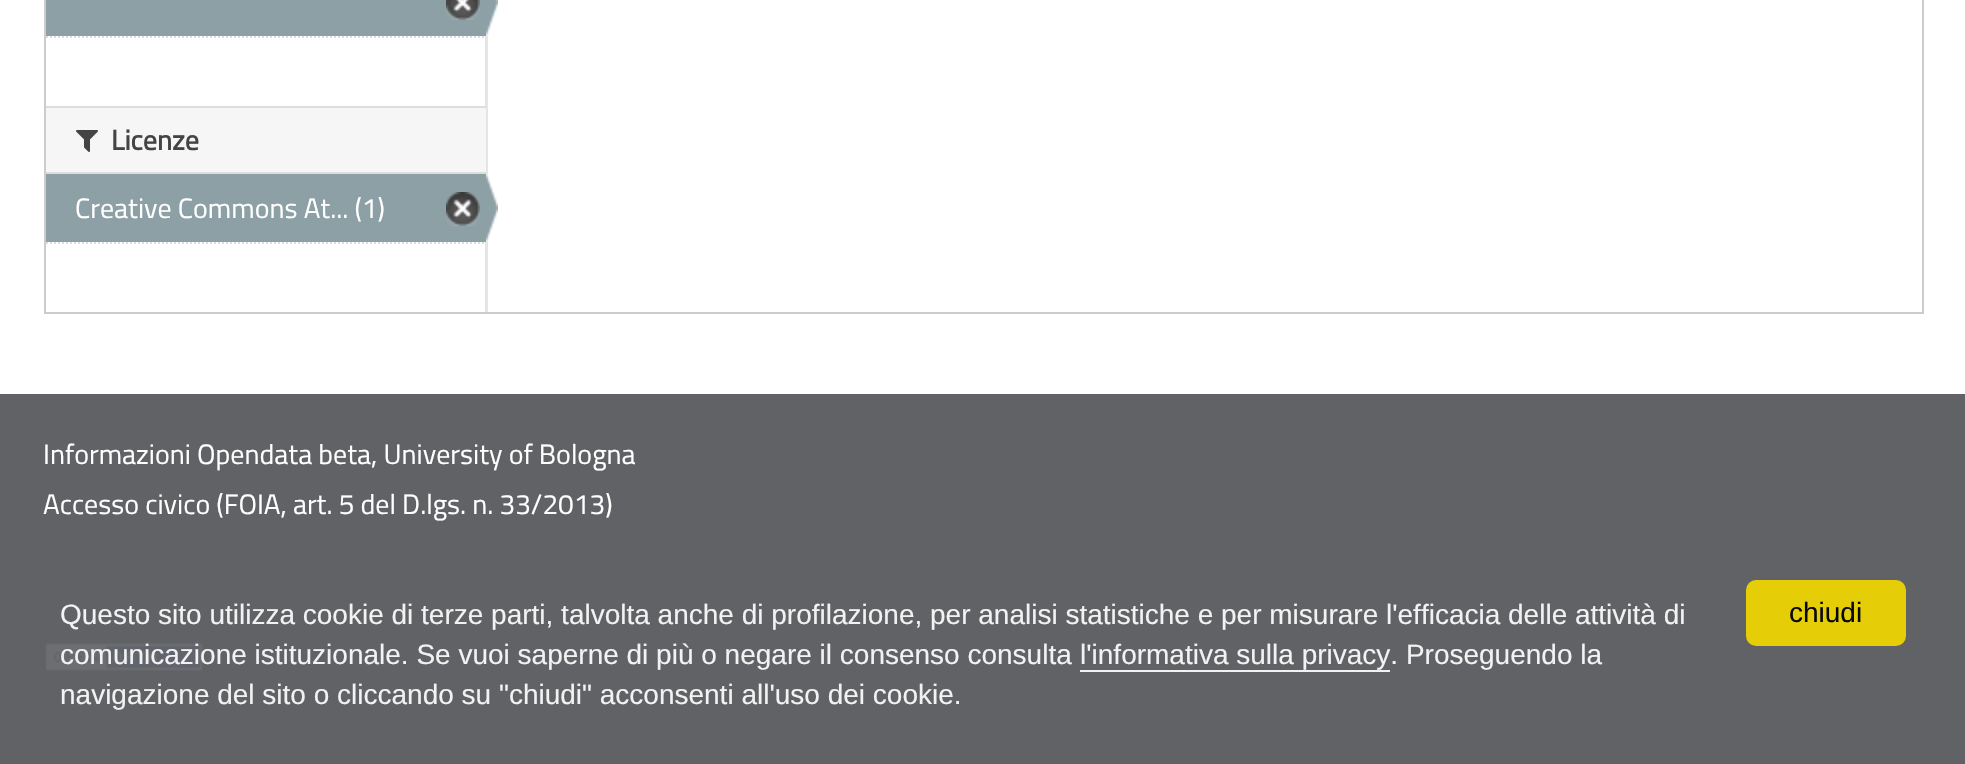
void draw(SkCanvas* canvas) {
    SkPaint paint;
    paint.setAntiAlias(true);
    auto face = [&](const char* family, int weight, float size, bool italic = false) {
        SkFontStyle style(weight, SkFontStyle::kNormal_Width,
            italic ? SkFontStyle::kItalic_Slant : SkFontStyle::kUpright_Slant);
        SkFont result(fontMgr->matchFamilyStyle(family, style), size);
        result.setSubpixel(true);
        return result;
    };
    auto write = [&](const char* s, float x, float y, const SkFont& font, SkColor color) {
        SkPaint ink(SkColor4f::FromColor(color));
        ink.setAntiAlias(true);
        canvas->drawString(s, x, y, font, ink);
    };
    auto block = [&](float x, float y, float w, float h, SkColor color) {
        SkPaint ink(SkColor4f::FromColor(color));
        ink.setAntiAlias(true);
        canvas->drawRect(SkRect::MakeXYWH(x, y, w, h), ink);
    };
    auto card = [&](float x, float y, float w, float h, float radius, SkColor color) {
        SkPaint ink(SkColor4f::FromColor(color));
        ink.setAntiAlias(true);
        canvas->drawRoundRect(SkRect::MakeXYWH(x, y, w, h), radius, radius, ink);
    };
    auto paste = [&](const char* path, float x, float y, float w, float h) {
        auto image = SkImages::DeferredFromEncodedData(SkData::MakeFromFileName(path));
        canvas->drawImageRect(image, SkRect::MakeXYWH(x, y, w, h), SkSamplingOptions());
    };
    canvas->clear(SK_ColorWHITE);
    block(485, 29, 3, 285, SkColorSetRGB(229, 229, 229));
    paint.setStyle(SkPaint::kStroke_Style);
    paint.setStrokeWidth(2);
    paint.setColor(SkColorSetRGB(204, 204, 204));
    canvas->drawRect(SkRect::MakeXYWH(45, -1, 1878, 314), paint);
    block(46, 0, 440, 36, SkColorSetRGB(140, 160, 166));
    paste("pic1.png", 446, 0, 34, 20);
    paste("pic2.png", 486, 0, 12, 36);
    paint.setColor(SkColorSetRGB(221, 221, 221));
    paint.setPathEffect(SkDashPathEffect::Make({{2, 2}}, 0));
    canvas->drawPath(SkPathBuilder().moveTo(46, 37).lineTo(486, 37).detach(), paint);
    paint.setPathEffect(nullptr);
    block(46, 108, 440, 64, SkColorSetRGB(246, 246, 246));
    block(46, 106, 440, 2, SkColorSetRGB(221, 221, 221));
    block(46, 172, 440, 2, SkColorSetRGB(221, 221, 221));
    paste("pic3.png", 76, 130, 22, 22);
    auto kFont1 = face("Titillium Web", 700, 28);
    write("Licenze", 111, 150, kFont1, SkColorSetRGB(68, 68, 68));
    block(46, 174, 440, 68, SkColorSetRGB(140, 160, 166));
    auto kFont2 = face("Titillium Web", 400, 28);
    write("Creative Commons At... (1)", 75, 218, kFont2, SK_ColorWHITE);
    paste("pic4.png", 446, 192, 34, 34);
    paste("pic5.png", 486, 174, 12, 68);
    paint.setPathEffect(SkDashPathEffect::Make({{2, 2}}, 0));
    canvas->drawPath(SkPathBuilder().moveTo(46, 243).lineTo(486, 243).detach(), paint);
    paint.setPathEffect(nullptr);
    block(0, 394, 1965, 370, SkColorSetRGB(97, 98, 101));
    write("Informazioni Opendata beta, University of Bologna", 43, 464, kFont2, SK_ColorWHITE);
    write("Accesso civico (FOIA, art. 5 del D.lgs. n. 33/2013)", 43, 514, kFont2, SK_ColorWHITE);
    paste("pic6.png", 44, 642, 160, 30);
    block(44, 642, 160, 30, SkColorSetARGB(235, 97, 98, 101));
    auto kFont3 = face("Liberation Sans", 400, 28);
    write("Questo sito utilizza cookie di terze parti, talvolta anche di profilazione, per analisi statistiche e per misurare l'efficacia delle attività di", 60, 624, kFont3, SkColorSetRGB(242, 242, 243));
    write("comunicazione istituzionale. Se vuoi saperne di più o negare il consenso consulta", 60, 664, kFont3, SkColorSetRGB(242, 242, 243));
    write("l'informativa sulla privacy. Proseguendo la", 1080, 664, kFont3, SkColorSetRGB(242, 242, 243));
    block(1080, 670, 310, 2, SkColorSetRGB(242, 242, 243));
    write("navigazione del sito o cliccando su \"chiudi\" acconsenti all'uso dei cookie.", 60, 704, kFont3, SkColorSetRGB(242, 242, 243));
    card(1746, 580, 160, 66, 10, SkColorSetRGB(229, 205, 8));
    write("chiudi", 1789, 622, kFont3, SkColorSetRGB(8, 8, 8));
}
